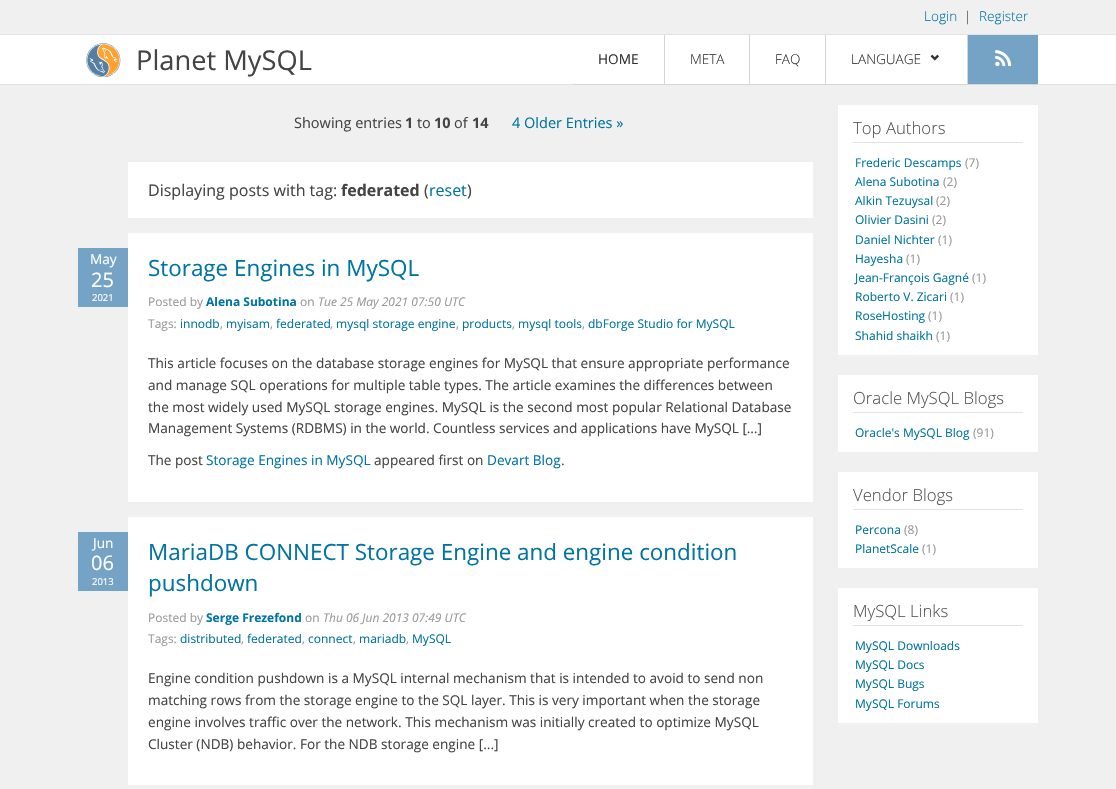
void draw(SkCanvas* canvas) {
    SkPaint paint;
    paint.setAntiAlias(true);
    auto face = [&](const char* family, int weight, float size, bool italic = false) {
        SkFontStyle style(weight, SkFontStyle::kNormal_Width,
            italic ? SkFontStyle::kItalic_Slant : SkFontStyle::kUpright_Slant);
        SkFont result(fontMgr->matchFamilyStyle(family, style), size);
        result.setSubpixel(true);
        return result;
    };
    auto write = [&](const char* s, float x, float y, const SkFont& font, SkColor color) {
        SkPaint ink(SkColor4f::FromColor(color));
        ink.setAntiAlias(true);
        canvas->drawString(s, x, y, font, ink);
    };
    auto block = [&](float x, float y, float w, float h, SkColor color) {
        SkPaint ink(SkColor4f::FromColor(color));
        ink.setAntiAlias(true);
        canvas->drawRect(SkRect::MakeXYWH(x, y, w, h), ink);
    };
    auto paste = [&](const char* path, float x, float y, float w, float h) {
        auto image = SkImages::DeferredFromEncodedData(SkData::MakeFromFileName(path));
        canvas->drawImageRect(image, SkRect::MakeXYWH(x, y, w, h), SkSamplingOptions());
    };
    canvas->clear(SkColorSetRGB(240, 240, 240));
    block(0, 34, 1116, 1, SkColorSetRGB(226, 226, 226));
    auto kFont1 = face("Open Sans", 300, 13.6f);
    write("Login", 924, 21, kFont1, SkColorSetRGB(0, 116, 163));
    write("|", 964, 21, kFont1, SkColorSetRGB(68, 68, 68));
    write("Register", 979, 21, kFont1, SkColorSetRGB(0, 116, 163));
    block(0, 35, 1116, 49, SK_ColorWHITE);
    block(0, 84, 1116, 1, SkColorSetRGB(226, 226, 226));
    paste("pic1.png", 86, 43, 35, 34);
    auto kFont2 = face("Open Sans", 400, 27.25f);
    write("Planet MySQL", 136, 70, kFont2, SkColorSetRGB(68, 68, 68));
    block(573, 84, 465, 1, SkColorSetRGB(210, 214, 213));
    auto kFont3 = face("Open Sans", 400, 13.6f);
    write("HOME", 598, 64, kFont3, SkColorSetRGB(49, 49, 49));
    block(664, 35, 1, 50, SkColorSetRGB(210, 214, 213));
    write("META", 690, 64, kFont1, SkColorSetRGB(49, 49, 49));
    block(749, 35, 1, 50, SkColorSetRGB(210, 214, 213));
    write("FAQ", 775, 64, kFont1, SkColorSetRGB(49, 49, 49));
    block(825, 35, 1, 50, SkColorSetRGB(210, 214, 213));
    write("LANGUAGE", 851, 64, kFont1, SkColorSetRGB(49, 49, 49));
    paste("pic2.png", 930, 54, 9, 7);
    block(967, 35, 1, 50, SkColorSetRGB(210, 214, 213));
    block(968, 35, 70, 49, SkColorSetRGB(116, 163, 198));
    paste("pic3.png", 995, 50, 17, 17);
    auto kFont4 = face("Open Sans", 400, 14.5f);
    write("Showing entries", 294, 128, kFont4, SkColorSetRGB(68, 68, 68));
    auto kFont5 = face("Open Sans", 700, 14.5f);
    write("1", 405, 128, kFont5, SkColorSetRGB(68, 68, 68));
    write("to", 417, 128, kFont4, SkColorSetRGB(68, 68, 68));
    write("10", 434, 128, kFont5, SkColorSetRGB(68, 68, 68));
    write("of", 454, 128, kFont4, SkColorSetRGB(68, 68, 68));
    write("14", 472, 128, kFont5, SkColorSetRGB(68, 68, 68));
    write("4 Older Entries »", 512, 128, kFont4, SkColorSetRGB(0, 116, 163));
    block(128, 162, 685, 56, SK_ColorWHITE);
    auto kFont6 = face("Open Sans", 400, 16);
    write("Displaying posts with tag:", 148, 196, kFont6, SkColorSetRGB(68, 68, 68));
    auto kFont7 = face("Open Sans", 700, 16);
    write("federated", 341, 196, kFont7, SkColorSetRGB(68, 68, 68));
    write("(", 424, 196, kFont6, SkColorSetRGB(68, 68, 68));
    write("reset", 429, 196, kFont6, SkColorSetRGB(0, 116, 163));
    write(")", 467, 196, kFont6, SkColorSetRGB(68, 68, 68));
    block(128, 233, 685, 269, SK_ColorWHITE);
    block(78, 248, 50, 59, SkColorSetRGB(116, 163, 198));
    write("May", 90, 264, kFont3, SK_ColorWHITE);
    auto kFont8 = face("Open Sans", 400, 20);
    write("25", 91, 287, kFont8, SK_ColorWHITE);
    auto kFont9 = face("Open Sans", 400, 9.5f);
    write("2021", 92, 301, kFont9, SK_ColorWHITE);
    auto kFont10 = face("Open Sans", 400, 22.4f);
    write("Storage Engines in MySQL", 148, 276, kFont10, SkColorSetRGB(0, 116, 163));
    auto kFont11 = face("Open Sans", 400, 12);
    write("Posted by", 148, 306, kFont11, SkColorSetRGB(153, 153, 153));
    auto kFont12 = face("Open Sans", 700, 12);
    write("Alena Subotina", 206, 306, kFont12, SkColorSetRGB(0, 116, 163));
    write("on", 300, 306, kFont11, SkColorSetRGB(153, 153, 153));
    auto kFont13 = face("Open Sans", 400, 12, true);
    write("Tue 25 May 2021 07:50 UTC", 318, 306, kFont13, SkColorSetRGB(153, 153, 153));
    write("Tags:", 148, 328, kFont11, SkColorSetRGB(153, 153, 153));
    write("innodb", 180, 328, kFont11, SkColorSetRGB(0, 116, 163));
    write(",", 220, 328, kFont11, SkColorSetRGB(153, 153, 153));
    write("myisam", 226, 328, kFont11, SkColorSetRGB(0, 116, 163));
    write(",", 270, 328, kFont11, SkColorSetRGB(153, 153, 153));
    write("federated", 276, 328, kFont11, SkColorSetRGB(0, 116, 163));
    write(",", 330, 328, kFont11, SkColorSetRGB(153, 153, 153));
    write("mysql storage engine", 336, 328, kFont11, SkColorSetRGB(0, 116, 163));
    write(",", 456, 328, kFont11, SkColorSetRGB(153, 153, 153));
    write("products", 462, 328, kFont11, SkColorSetRGB(0, 116, 163));
    write(",", 512, 328, kFont11, SkColorSetRGB(153, 153, 153));
    write("mysql tools", 518, 328, kFont11, SkColorSetRGB(0, 116, 163));
    write(",", 582, 328, kFont11, SkColorSetRGB(153, 153, 153));
    write("dbForge Studio for MySQL", 588, 328, kFont11, SkColorSetRGB(0, 116, 163));
    write("This article focuses on the database storage engines for MySQL that ensure appropriate performance", 148, 368, kFont3, SkColorSetRGB(68, 68, 68));
    write("and manage SQL operations for multiple table types. The article examines the differences between", 148, 390, kFont3, SkColorSetRGB(68, 68, 68));
    write("the most widely used MySQL storage engines. MySQL is the second most popular Relational Database", 148, 412, kFont3, SkColorSetRGB(68, 68, 68));
    write("Management Systems (RDBMS) in the world. Countless services and applications have MySQL […]", 148, 433, kFont3, SkColorSetRGB(68, 68, 68));
    write("The post", 148, 465, kFont3, SkColorSetRGB(68, 68, 68));
    write("Storage Engines in MySQL", 206, 465, kFont3, SkColorSetRGB(0, 116, 163));
    write("appeared first on", 374, 465, kFont3, SkColorSetRGB(68, 68, 68));
    write("Devart Blog", 487, 465, kFont3, SkColorSetRGB(0, 116, 163));
    write(".", 561, 465, kFont3, SkColorSetRGB(68, 68, 68));
    block(128, 517, 685, 268, SK_ColorWHITE);
    block(78, 532, 50, 59, SkColorSetRGB(116, 163, 198));
    write("Jun", 93, 548, kFont3, SK_ColorWHITE);
    write("06", 91, 570, kFont8, SK_ColorWHITE);
    write("2013", 92, 585, kFont9, SK_ColorWHITE);
    write("MariaDB CONNECT Storage Engine and engine condition", 148, 560, kFont10, SkColorSetRGB(0, 116, 163));
    write("pushdown", 148, 591, kFont10, SkColorSetRGB(0, 116, 163));
    write("Posted by", 148, 622, kFont11, SkColorSetRGB(153, 153, 153));
    write("Serge Frezefond", 206, 622, kFont12, SkColorSetRGB(0, 116, 163));
    write("on", 305, 622, kFont11, SkColorSetRGB(153, 153, 153));
    write("Thu 06 Jun 2013 07:49 UTC", 323, 622, kFont13, SkColorSetRGB(153, 153, 153));
    write("Tags:", 148, 643, kFont11, SkColorSetRGB(153, 153, 153));
    write("distributed", 180, 643, kFont11, SkColorSetRGB(0, 116, 163));
    write(",", 241, 643, kFont11, SkColorSetRGB(153, 153, 153));
    write("federated", 247, 643, kFont11, SkColorSetRGB(0, 116, 163));
    write(",", 302, 643, kFont11, SkColorSetRGB(153, 153, 153));
    write("connect", 308, 643, kFont11, SkColorSetRGB(0, 116, 163));
    write(",", 353, 643, kFont11, SkColorSetRGB(153, 153, 153));
    write("mariadb", 359, 643, kFont11, SkColorSetRGB(0, 116, 163));
    write(",", 406, 643, kFont11, SkColorSetRGB(153, 153, 153));
    write("MySQL", 412, 643, kFont11, SkColorSetRGB(0, 116, 163));
    write("Engine condition pushdown is a MySQL internal mechanism that is intended to avoid to send non", 148, 683, kFont3, SkColorSetRGB(68, 68, 68));
    write("matching rows from the storage engine to the SQL layer. This is very important when the storage", 148, 705, kFont3, SkColorSetRGB(68, 68, 68));
    write("engine involves traffic over the network. This mechanism was initially created to optimize MySQL", 148, 727, kFont3, SkColorSetRGB(68, 68, 68));
    write("Cluster (NDB) behavior. For the NDB storage engine [...]", 148, 749, kFont3, SkColorSetRGB(68, 68, 68));
    block(838, 105, 200, 250, SK_ColorWHITE);
    block(853, 142, 170, 1, SkColorSetRGB(226, 226, 226));
    auto kFont14 = face("Open Sans", 300, 16.75f);
    write("Top Authors", 853, 134, kFont14, SkColorSetRGB(85, 85, 85));
    write("Frederic Descamps", 855, 167, kFont11, SkColorSetRGB(0, 116, 163));
    write("(7)", 965, 167, kFont11, SkColorSetRGB(153, 153, 153));
    write("Alena Subotina", 855, 186, kFont11, SkColorSetRGB(0, 116, 163));
    write("(2)", 943, 186, kFont11, SkColorSetRGB(153, 153, 153));
    write("Alkin Tezuysal", 855, 205, kFont11, SkColorSetRGB(0, 116, 163));
    write("(2)", 936, 205, kFont11, SkColorSetRGB(153, 153, 153));
    write("Olivier Dasini", 855, 224, kFont11, SkColorSetRGB(0, 116, 163));
    write("(2)", 932, 224, kFont11, SkColorSetRGB(153, 153, 153));
    write("Daniel Nichter", 855, 244, kFont11, SkColorSetRGB(0, 116, 163));
    write("(1)", 938, 244, kFont11, SkColorSetRGB(153, 153, 153));
    write("Hayesha", 855, 263, kFont11, SkColorSetRGB(0, 116, 163));
    write("(1)", 906, 263, kFont11, SkColorSetRGB(153, 153, 153));
    write("Jean-François Gagné", 855, 282, kFont11, SkColorSetRGB(0, 116, 163));
    write("(1)", 972, 282, kFont11, SkColorSetRGB(153, 153, 153));
    write("Roberto V. Zicari", 855, 301, kFont11, SkColorSetRGB(0, 116, 163));
    write("(1)", 950, 301, kFont11, SkColorSetRGB(153, 153, 153));
    write("RoseHosting", 855, 320, kFont11, SkColorSetRGB(0, 116, 163));
    write("(1)", 928, 320, kFont11, SkColorSetRGB(153, 153, 153));
    write("Shahid shaikh", 855, 340, kFont11, SkColorSetRGB(0, 116, 163));
    write("(1)", 936, 340, kFont11, SkColorSetRGB(153, 153, 153));
    block(838, 375, 200, 77, SK_ColorWHITE);
    block(853, 412, 170, 1, SkColorSetRGB(226, 226, 226));
    write("Oracle MySQL Blogs", 853, 404, kFont14, SkColorSetRGB(85, 85, 85));
    write("Oracle's MySQL Blog", 855, 437, kFont11, SkColorSetRGB(0, 116, 163));
    write("(91)", 973, 437, kFont11, SkColorSetRGB(153, 153, 153));
    block(838, 472, 200, 96, SK_ColorWHITE);
    block(853, 509, 170, 1, SkColorSetRGB(226, 226, 226));
    write("Vendor Blogs", 853, 501, kFont14, SkColorSetRGB(85, 85, 85));
    write("Percona", 855, 534, kFont11, SkColorSetRGB(0, 116, 163));
    write("(8)", 904, 534, kFont11, SkColorSetRGB(153, 153, 153));
    write("PlanetScale", 855, 553, kFont11, SkColorSetRGB(0, 116, 163));
    write("(1)", 922, 553, kFont11, SkColorSetRGB(153, 153, 153));
    block(838, 588, 200, 135, SK_ColorWHITE);
    block(853, 625, 170, 1, SkColorSetRGB(226, 226, 226));
    write("MySQL Links", 853, 617, kFont14, SkColorSetRGB(85, 85, 85));
    write("MySQL Downloads", 855, 650, kFont11, SkColorSetRGB(0, 116, 163));
    write("MySQL Docs", 855, 669, kFont11, SkColorSetRGB(0, 116, 163));
    write("MySQL Bugs", 855, 688, kFont11, SkColorSetRGB(0, 116, 163));
    write("MySQL Forums", 855, 708, kFont11, SkColorSetRGB(0, 116, 163));
}
